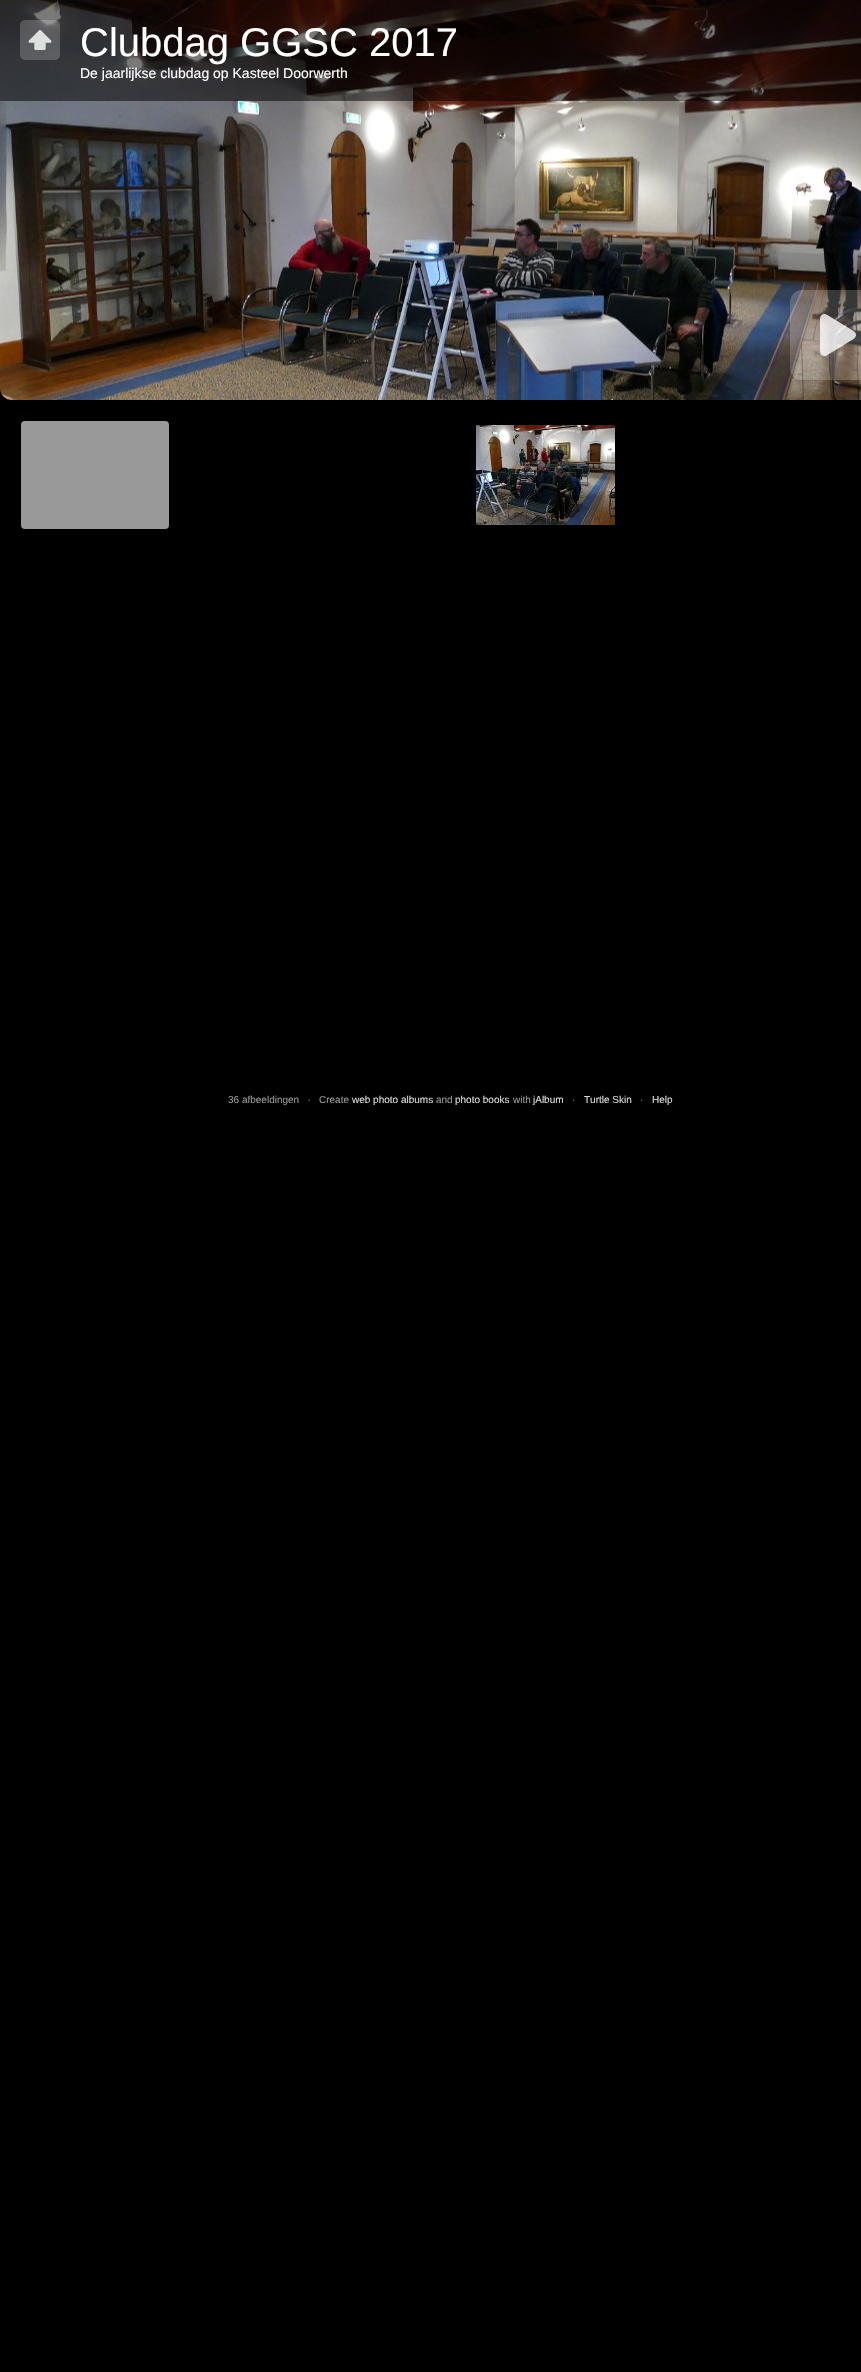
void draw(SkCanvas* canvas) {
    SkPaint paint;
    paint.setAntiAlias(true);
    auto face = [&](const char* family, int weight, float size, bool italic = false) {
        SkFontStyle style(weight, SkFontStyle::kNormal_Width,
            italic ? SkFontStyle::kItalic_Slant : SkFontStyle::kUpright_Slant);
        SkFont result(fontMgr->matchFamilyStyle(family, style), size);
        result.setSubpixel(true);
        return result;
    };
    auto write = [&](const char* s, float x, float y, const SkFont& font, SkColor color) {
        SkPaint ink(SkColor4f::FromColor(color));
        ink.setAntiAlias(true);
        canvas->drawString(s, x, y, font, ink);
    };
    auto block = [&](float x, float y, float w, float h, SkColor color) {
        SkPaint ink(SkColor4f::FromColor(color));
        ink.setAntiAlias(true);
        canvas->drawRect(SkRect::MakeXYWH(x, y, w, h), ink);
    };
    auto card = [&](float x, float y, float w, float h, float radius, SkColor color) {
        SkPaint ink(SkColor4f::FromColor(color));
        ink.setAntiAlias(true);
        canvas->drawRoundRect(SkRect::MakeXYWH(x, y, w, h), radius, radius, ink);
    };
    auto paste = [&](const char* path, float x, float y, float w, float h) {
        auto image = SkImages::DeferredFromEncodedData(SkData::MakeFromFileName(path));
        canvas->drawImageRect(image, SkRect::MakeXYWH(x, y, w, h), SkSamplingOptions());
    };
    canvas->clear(SK_ColorBLACK);
    paste("pic1.png", 0, 0, 861, 400);
    block(0, 0, 861, 101, SkColorSetARGB(133, 0, 0, 0));
    paste("pic2.png", 20, 20, 40, 40);
    auto kFont1 = face("Liberation Sans", 400, 40);
    write("Clubdag GGSC 2017", 80, 56, kFont1, SK_ColorWHITE);
    auto kFont2 = face("Liberation Sans", 400, 14);
    write("De jaarlijkse clubdag op Kasteel Doorwerth", 80, 78, kFont2, SK_ColorWHITE);
    paste("pic3.png", 790, 290, 71, 90);
    card(21, 421, 148, 108, 4, SkColorSetRGB(153, 153, 153));
    paste("pic4.png", 476, 425, 139, 100);
    auto kFont3 = face("Liberation Sans", 400, 10);
    write("36 afbeeldingen   ·", 228, 1103, kFont3, SkColorSetRGB(153, 153, 153));
    write("Create", 319, 1103, kFont3, SkColorSetRGB(153, 153, 153));
    write("web photo albums", 352, 1103, kFont3, SkColorSetRGB(221, 221, 221));
    write("and", 436, 1103, kFont3, SkColorSetRGB(153, 153, 153));
    write("photo books", 455, 1103, kFont3, SkColorSetRGB(221, 221, 221));
    write("with", 513, 1103, kFont3, SkColorSetRGB(153, 153, 153));
    write("jAlbum", 533, 1103, kFont3, SkColorSetRGB(221, 221, 221));
    write("·", 572, 1103, kFont3, SkColorSetRGB(153, 153, 153));
    write("Turtle Skin", 584, 1103, kFont3, SkColorSetRGB(221, 221, 221));
    write("·", 640, 1103, kFont3, SkColorSetRGB(153, 153, 153));
    write("Help", 652, 1103, kFont3, SkColorSetRGB(221, 221, 221));
}
